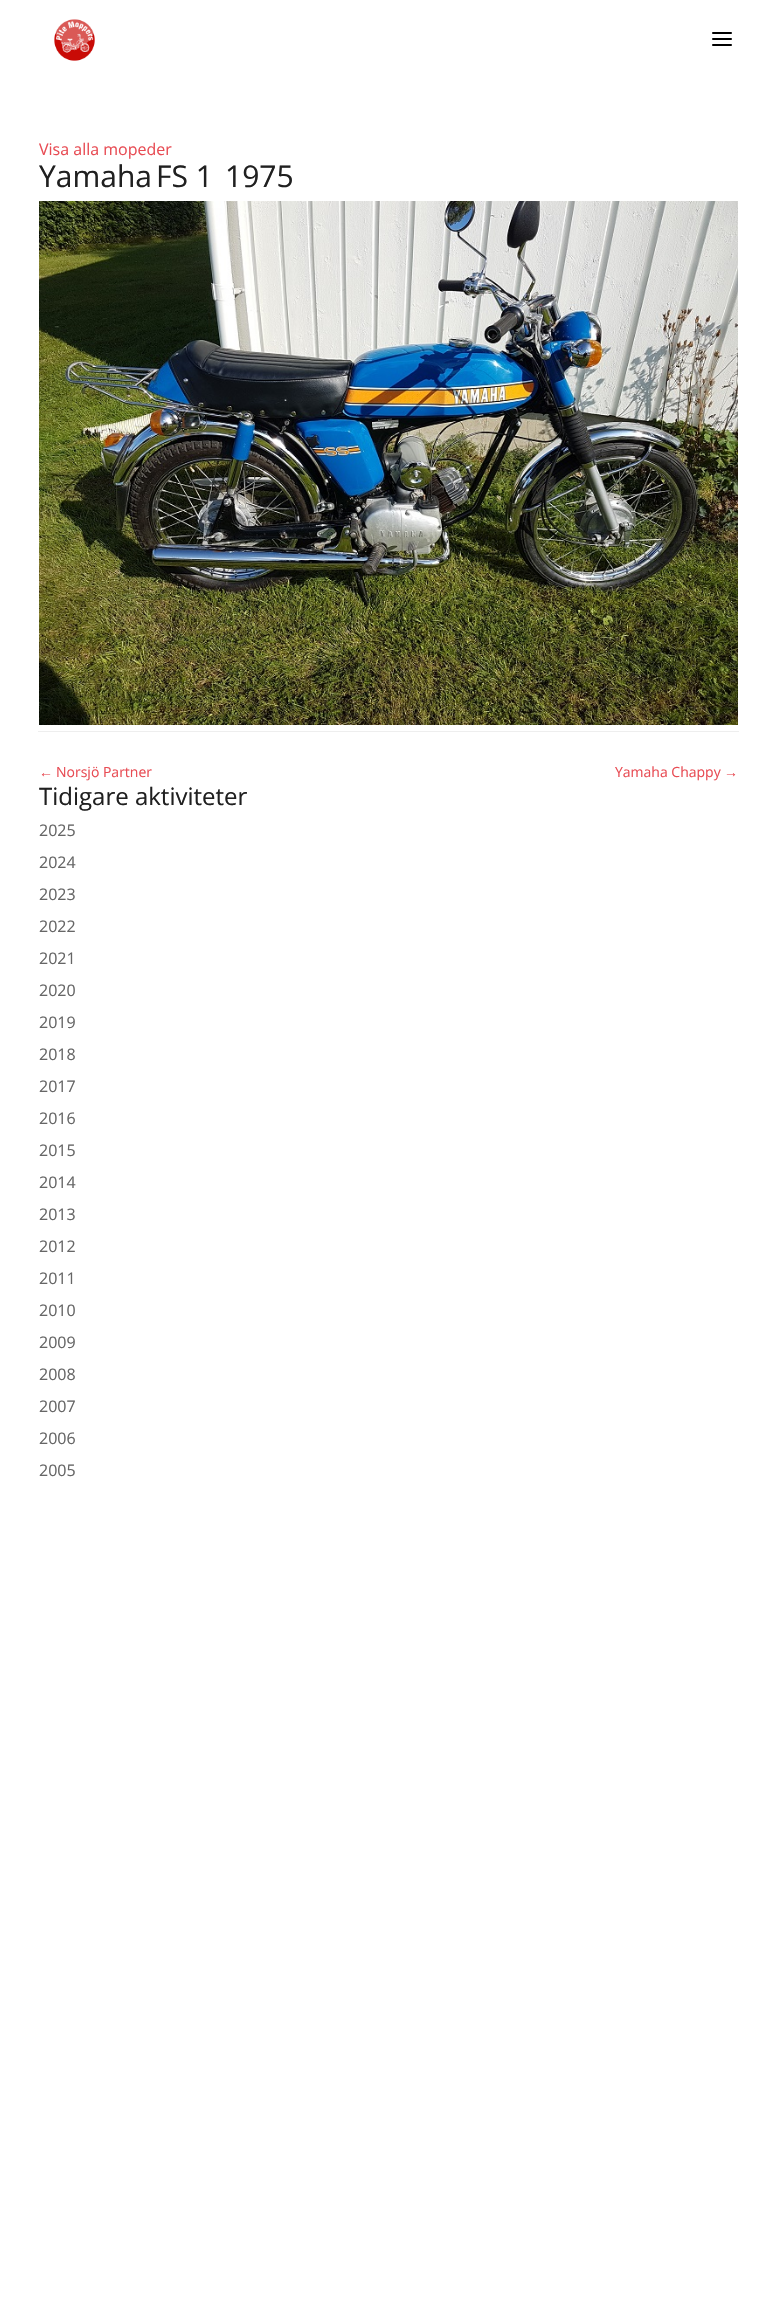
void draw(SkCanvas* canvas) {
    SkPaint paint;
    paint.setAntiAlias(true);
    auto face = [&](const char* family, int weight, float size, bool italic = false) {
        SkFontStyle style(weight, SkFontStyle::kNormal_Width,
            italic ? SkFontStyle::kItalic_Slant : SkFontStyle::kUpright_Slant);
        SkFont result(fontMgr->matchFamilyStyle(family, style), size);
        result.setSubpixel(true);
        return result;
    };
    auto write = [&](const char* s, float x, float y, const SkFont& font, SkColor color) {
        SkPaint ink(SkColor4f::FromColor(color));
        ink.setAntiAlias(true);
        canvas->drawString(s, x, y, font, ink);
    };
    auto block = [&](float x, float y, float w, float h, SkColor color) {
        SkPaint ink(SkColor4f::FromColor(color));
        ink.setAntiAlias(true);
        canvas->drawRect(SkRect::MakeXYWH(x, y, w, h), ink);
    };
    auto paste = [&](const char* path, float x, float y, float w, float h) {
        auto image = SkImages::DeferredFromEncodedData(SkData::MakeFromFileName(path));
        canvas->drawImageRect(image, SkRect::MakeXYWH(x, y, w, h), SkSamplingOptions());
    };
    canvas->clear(SK_ColorWHITE);
    paste("pic1.png", 54, 19, 41, 42);
    paste("pic2.png", 712, 32, 20, 14);
    auto kFont1 = face("Open Sans", 400, 16);
    write("Visa alla mopeder", 39, 155, kFont1, SkColorSetRGB(232, 76, 84));
    auto kFont2 = face("Open Sans", 400, 30);
    write("Yamaha", 39, 187, kFont2, SkColorSetRGB(32, 32, 32));
    write("FS 1", 156, 187, kFont2, SkColorSetRGB(32, 32, 32));
    write("1975", 225, 187, kFont2, SkColorSetRGB(32, 32, 32));
    paste("pic3.png", 39, 201, 699, 524);
    block(38, 731, 701, 1, SkColorSetRGB(238, 238, 238));
    auto kFont3 = face("Liberation Sans", 400, 14);
    write("←", 39, 777, kFont3, SkColorSetRGB(232, 76, 84));
    auto kFont4 = face("Open Sans", 400, 14);
    write("Norsjö Partner", 56, 777, kFont4, SkColorSetRGB(232, 76, 84));
    write("Yamaha Chappy", 615, 777, kFont4, SkColorSetRGB(232, 76, 84));
    write("→", 724, 777, kFont3, SkColorSetRGB(232, 76, 84));
    auto kFont5 = face("Open Sans", 400, 24);
    write("Tidigare aktiviteter", 39, 805, kFont5, SkColorSetRGB(32, 32, 32));
    write("2025", 39, 836, kFont1, SkColorSetRGB(102, 102, 102));
    write("2024", 39, 868, kFont1, SkColorSetRGB(102, 102, 102));
    write("2023", 39, 900, kFont1, SkColorSetRGB(102, 102, 102));
    write("2022", 39, 932, kFont1, SkColorSetRGB(102, 102, 102));
    write("2021", 39, 964, kFont1, SkColorSetRGB(102, 102, 102));
    write("2020", 39, 996, kFont1, SkColorSetRGB(102, 102, 102));
    write("2019", 39, 1028, kFont1, SkColorSetRGB(102, 102, 102));
    write("2018", 39, 1060, kFont1, SkColorSetRGB(102, 102, 102));
    write("2017", 39, 1092, kFont1, SkColorSetRGB(102, 102, 102));
    write("2016", 39, 1124, kFont1, SkColorSetRGB(102, 102, 102));
    write("2015", 39, 1156, kFont1, SkColorSetRGB(102, 102, 102));
    write("2014", 39, 1188, kFont1, SkColorSetRGB(102, 102, 102));
    write("2013", 39, 1220, kFont1, SkColorSetRGB(102, 102, 102));
    write("2012", 39, 1252, kFont1, SkColorSetRGB(102, 102, 102));
    write("2011", 39, 1284, kFont1, SkColorSetRGB(102, 102, 102));
    write("2010", 39, 1316, kFont1, SkColorSetRGB(102, 102, 102));
    write("2009", 39, 1348, kFont1, SkColorSetRGB(102, 102, 102));
    write("2008", 39, 1380, kFont1, SkColorSetRGB(102, 102, 102));
    write("2007", 39, 1412, kFont1, SkColorSetRGB(102, 102, 102));
    write("2006", 39, 1444, kFont1, SkColorSetRGB(102, 102, 102));
    write("2005", 39, 1476, kFont1, SkColorSetRGB(102, 102, 102));
}
